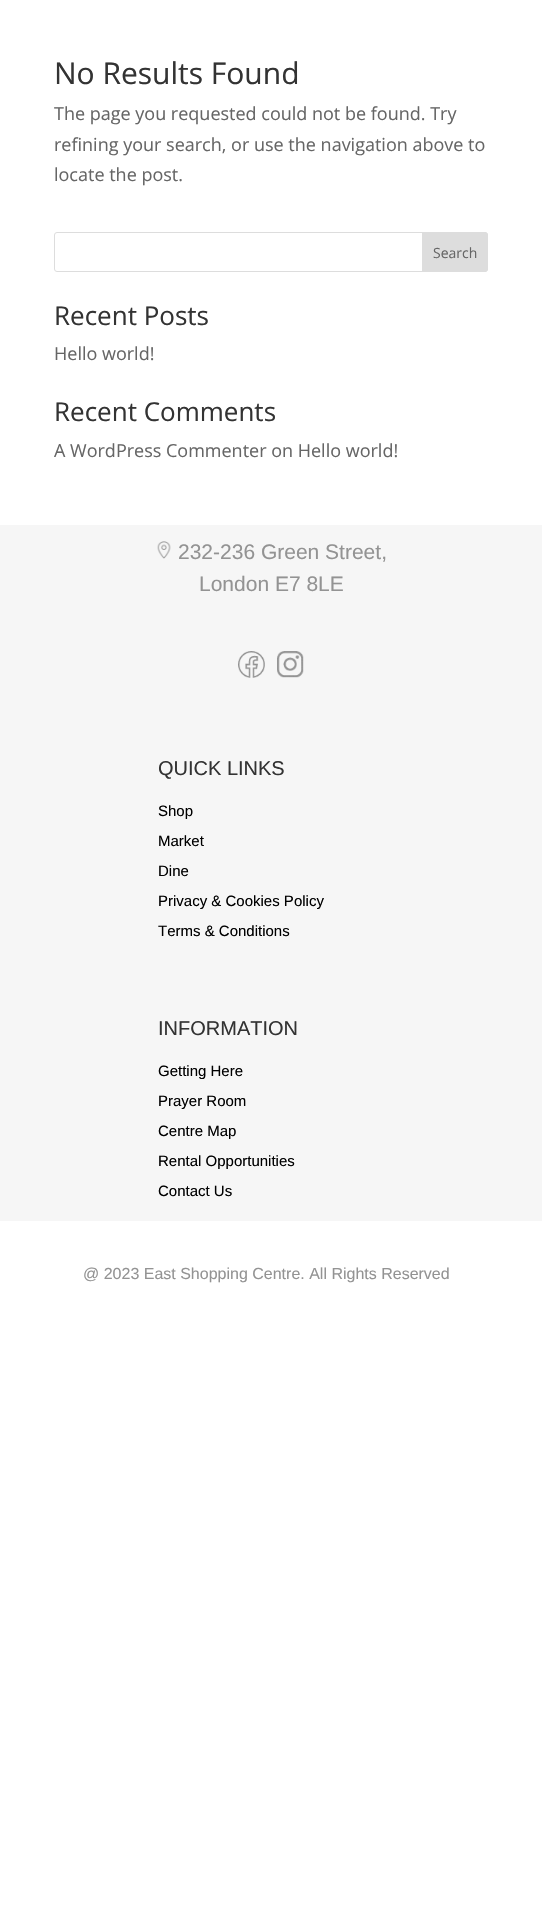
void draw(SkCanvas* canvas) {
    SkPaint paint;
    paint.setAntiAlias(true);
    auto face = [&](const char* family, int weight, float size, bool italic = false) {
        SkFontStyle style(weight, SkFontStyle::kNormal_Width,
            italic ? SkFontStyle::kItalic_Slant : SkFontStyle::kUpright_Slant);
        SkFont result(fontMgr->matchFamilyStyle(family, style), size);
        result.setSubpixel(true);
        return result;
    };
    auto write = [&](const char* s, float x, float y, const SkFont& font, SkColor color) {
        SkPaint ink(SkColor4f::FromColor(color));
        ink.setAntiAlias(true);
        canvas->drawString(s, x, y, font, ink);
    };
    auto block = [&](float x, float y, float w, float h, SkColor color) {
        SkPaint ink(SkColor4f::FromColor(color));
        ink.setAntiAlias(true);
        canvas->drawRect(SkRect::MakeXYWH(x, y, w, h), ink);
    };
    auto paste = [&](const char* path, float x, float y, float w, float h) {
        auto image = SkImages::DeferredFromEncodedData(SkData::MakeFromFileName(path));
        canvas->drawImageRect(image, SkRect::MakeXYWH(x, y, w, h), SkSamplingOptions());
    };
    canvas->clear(SK_ColorWHITE);
    auto kFont1 = face("Open Sans", 400, 30);
    write("No Results Found", 54, 84, kFont1, SkColorSetRGB(51, 51, 51));
    auto kFont2 = face("Open Sans", 400, 18);
    write("The page you requested could not be found. Try", 54, 120, kFont2, SkColorSetRGB(102, 102, 102));
    write("refining your search, or use the navigation above to", 54, 151, kFont2, SkColorSetRGB(102, 102, 102));
    write("locate the post.", 54, 181, kFont2, SkColorSetRGB(102, 102, 102));
    paint.setStyle(SkPaint::kStroke_Style);
    paint.setStrokeWidth(1);
    paint.setColor(SkColorSetRGB(221, 221, 221));
    canvas->drawRoundRect(SkRect::MakeXYWH(54.5f, 232.5f, 433, 39), 2.5f, 2.5f, paint);
    paint.setStyle(SkPaint::kFill_Style);
    canvas->drawPath(SkPathBuilder().moveTo(422.5f, 232.5f).lineTo(485, 232.5f).cubicTo(486.5f, 232.5f, 487.5f, 233.5f, 487.5f, 235).lineTo(487.5f, 269).cubicTo(487.5f, 270.5f, 486.5f, 271.5f, 485, 271.5f).lineTo(422.5f, 271.5f).close().detach(), paint);
    paint.setStyle(SkPaint::kStroke_Style);
    canvas->drawPath(SkPathBuilder().moveTo(422.5f, 232.5f).lineTo(485, 232.5f).cubicTo(486.5f, 232.5f, 487.5f, 233.5f, 487.5f, 235).lineTo(487.5f, 269).cubicTo(487.5f, 270.5f, 486.5f, 271.5f, 485, 271.5f).lineTo(422.5f, 271.5f).close().detach(), paint);
    auto kFont3 = face("Open Sans", 400, 14);
    write("Search", 433, 258, kFont3, SkColorSetRGB(102, 102, 102));
    auto kFont4 = face("Open Sans", 400, 26);
    write("Recent Posts", 54, 325, kFont4, SkColorSetRGB(51, 51, 51));
    write("Hello world!", 54, 360, kFont2, SkColorSetRGB(102, 102, 102));
    write("Recent Comments", 54, 421, kFont4, SkColorSetRGB(51, 51, 51));
    write("A WordPress Commenter on Hello world!", 54, 457, kFont2, SkColorSetRGB(102, 102, 102));
    block(0, 525, 542, 696, SkColorSetRGB(246, 246, 246));
    paste("pic1.png", 157, 541, 14, 18);
    auto kFont5 = face("Liberation Sans", 400, 21);
    write("232-236 Green Street,", 178, 559, kFont5, SkColorSetRGB(147, 147, 147));
    write("London E7 8LE", 199, 591, kFont5, SkColorSetRGB(147, 147, 147));
    paste("pic2.png", 238, 651, 27, 27);
    paste("pic3.png", 277, 651, 27, 27);
    auto kFont6 = face("Liberation Sans", 400, 20);
    write("QUICK LINKS", 158, 775, kFont6, SkColorSetRGB(51, 51, 51));
    auto kFont7 = face("Liberation Sans", 400, 15);
    write("Shop", 158, 816, kFont7, SK_ColorBLACK);
    write("Market", 158, 846, kFont7, SK_ColorBLACK);
    write("Dine", 158, 876, kFont7, SK_ColorBLACK);
    write("Privacy & Cookies Policy", 158, 906, kFont7, SK_ColorBLACK);
    write("Terms & Conditions", 158, 936, kFont7, SK_ColorBLACK);
    write("INFORMATION", 158, 1035, kFont6, SkColorSetRGB(51, 51, 51));
    write("Getting Here", 158, 1076, kFont7, SK_ColorBLACK);
    write("Prayer Room", 158, 1106, kFont7, SK_ColorBLACK);
    write("Centre Map", 158, 1136, kFont7, SK_ColorBLACK);
    write("Rental Opportunities", 158, 1166, kFont7, SK_ColorBLACK);
    write("Contact Us", 158, 1196, kFont7, SK_ColorBLACK);
    auto kFont8 = face("Liberation Sans", 400, 16);
    write("@ 2023 East Shopping Centre. All Rights Reserved", 83, 1279, kFont8, SkColorSetRGB(147, 147, 147));
}
